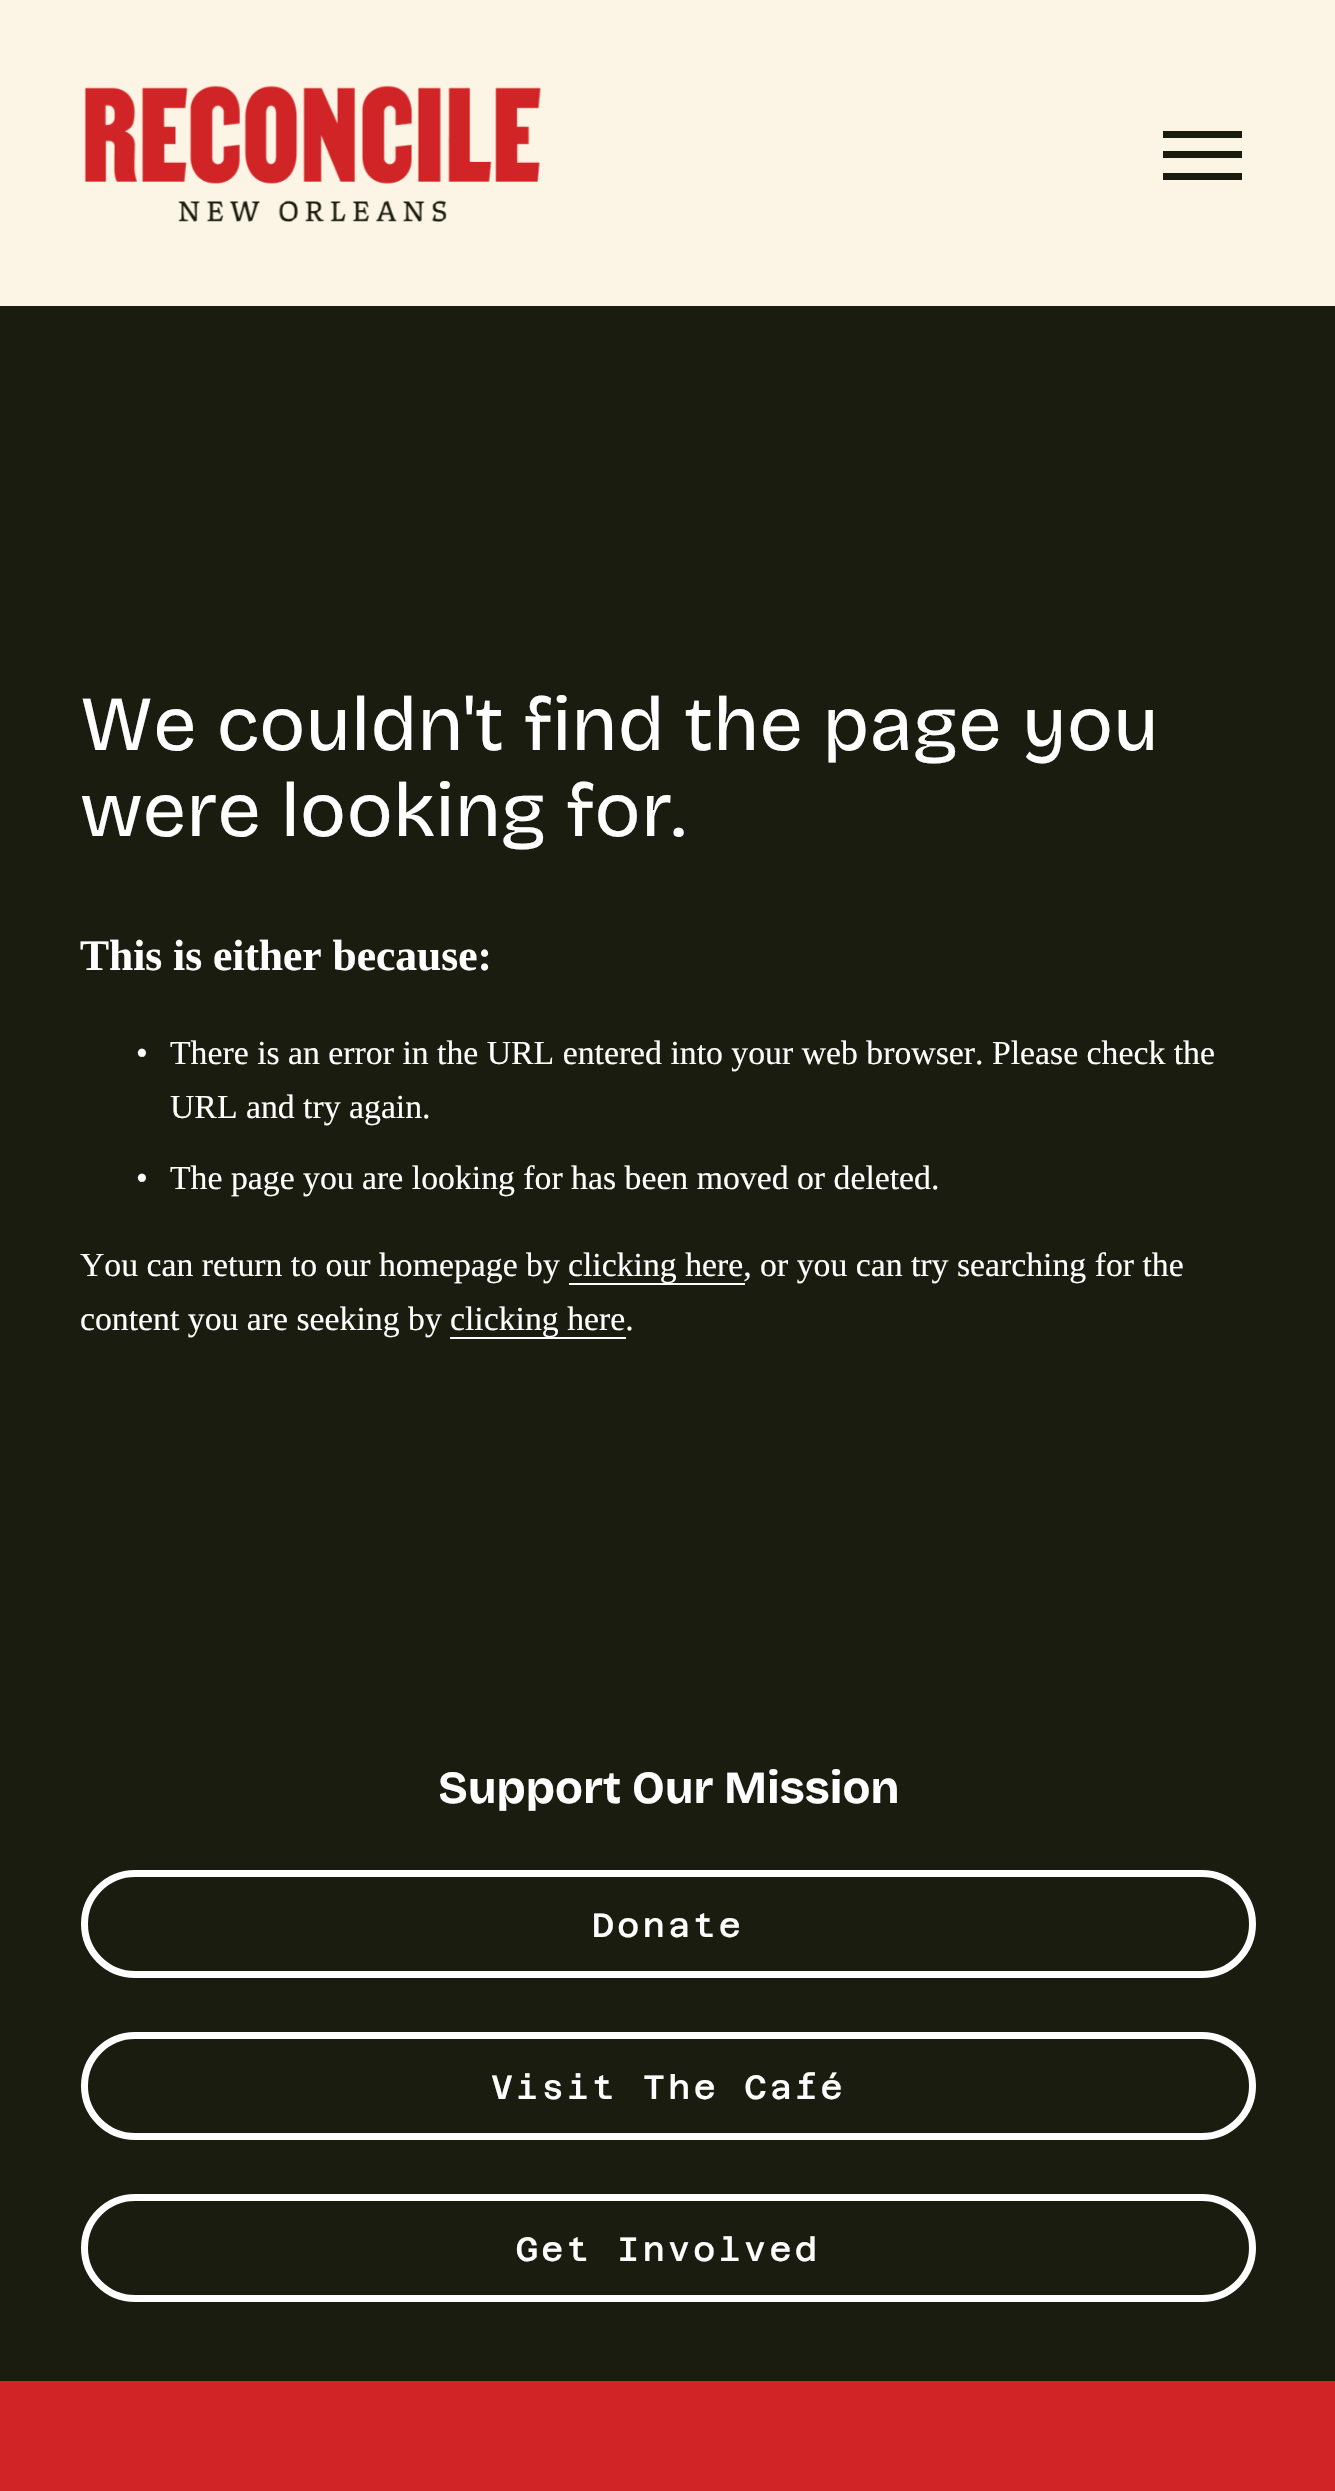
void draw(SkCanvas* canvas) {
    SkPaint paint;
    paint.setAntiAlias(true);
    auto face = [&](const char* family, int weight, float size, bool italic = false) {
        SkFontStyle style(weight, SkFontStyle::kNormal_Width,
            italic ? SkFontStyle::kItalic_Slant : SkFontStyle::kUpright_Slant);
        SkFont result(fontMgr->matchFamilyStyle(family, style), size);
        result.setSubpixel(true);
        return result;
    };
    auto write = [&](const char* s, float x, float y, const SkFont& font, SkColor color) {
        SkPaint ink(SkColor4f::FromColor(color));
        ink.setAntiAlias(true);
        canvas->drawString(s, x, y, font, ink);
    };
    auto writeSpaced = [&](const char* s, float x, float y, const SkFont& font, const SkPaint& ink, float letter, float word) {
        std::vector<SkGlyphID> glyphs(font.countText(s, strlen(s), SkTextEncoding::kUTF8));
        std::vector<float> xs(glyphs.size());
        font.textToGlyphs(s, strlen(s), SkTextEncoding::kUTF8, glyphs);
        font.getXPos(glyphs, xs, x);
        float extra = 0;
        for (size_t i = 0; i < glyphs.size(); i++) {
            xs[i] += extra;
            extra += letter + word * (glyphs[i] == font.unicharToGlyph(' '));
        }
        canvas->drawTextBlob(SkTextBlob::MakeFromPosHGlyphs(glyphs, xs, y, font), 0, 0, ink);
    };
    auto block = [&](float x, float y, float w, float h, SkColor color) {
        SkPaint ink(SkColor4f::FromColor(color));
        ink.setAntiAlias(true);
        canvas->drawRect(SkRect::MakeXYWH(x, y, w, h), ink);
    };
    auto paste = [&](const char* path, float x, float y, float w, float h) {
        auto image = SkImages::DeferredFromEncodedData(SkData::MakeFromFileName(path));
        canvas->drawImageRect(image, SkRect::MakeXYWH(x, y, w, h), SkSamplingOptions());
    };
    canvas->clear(SkColorSetRGB(26, 28, 15));
    block(0, 0, 1335, 306, SkColorSetRGB(252, 245, 229));
    paste("pic1.png", 84, 85, 457, 137);
    block(1163, 131, 79, 7, SkColorSetRGB(26, 28, 15));
    block(1163, 151, 79, 7, SkColorSetRGB(26, 28, 15));
    block(1163, 173, 79, 7, SkColorSetRGB(26, 28, 15));
    auto kFont1 = face("Bricolage Grotesque", 400, 77.5f);
    write("We couldn't find the page you", 80, 750, kFont1, SK_ColorWHITE);
    write("were looking for.", 80, 836, kFont1, SK_ColorWHITE);
    auto kFont2 = face("Liberation Serif", 700, 43.5f);
    write("This is either because:", 80, 970, kFont2, SK_ColorWHITE);
    auto kFont3 = face("Liberation Serif", 400, 33.75f);
    write("•", 136, 1064, kFont3, SK_ColorWHITE);
    write("There is an error in the URL entered into your web browser. Please check the", 170, 1064, kFont3, SK_ColorWHITE);
    write("URL and try again.", 170, 1118, kFont3, SK_ColorWHITE);
    write("•", 136, 1189, kFont3, SK_ColorWHITE);
    write("The page you are looking for has been moved or deleted.", 170, 1189, kFont3, SK_ColorWHITE);
    write("You can return to our homepage by", 80, 1276, kFont3, SK_ColorWHITE);
    block(569, 1283, 176, 2, SK_ColorWHITE);
    write("clicking here, or you can try searching for the", 568, 1276, kFont3, SK_ColorWHITE);
    write("content you are seeking by", 80, 1330, kFont3, SK_ColorWHITE);
    block(450, 1337, 176, 2, SK_ColorWHITE);
    write("clicking here.", 450, 1330, kFont3, SK_ColorWHITE);
    auto kFont4 = face("Bricolage Grotesque", 700, 45.9f);
    write("Support Our Mission", 438, 1803, kFont4, SK_ColorWHITE);
    paint.setStyle(SkPaint::kStroke_Style);
    paint.setStrokeWidth(7);
    paint.setColor(SK_ColorWHITE);
    canvas->drawRoundRect(SkRect::MakeXYWH(84.5f, 1873.5f, 1168, 101), 50.5f, 50.5f, paint);
    auto kFont5 = face("Azeret Mono", 500, 33.75f);
    paint.setStyle(SkPaint::kFill_Style);
    writeSpaced("Donate", 592, 1937, kFont5, paint, 3.4f, 0);
    paint.setStyle(SkPaint::kStroke_Style);
    canvas->drawRoundRect(SkRect::MakeXYWH(84.5f, 2035.5f, 1168, 101), 50.5f, 50.5f, paint);
    paint.setStyle(SkPaint::kFill_Style);
    writeSpaced("Visit The Café", 491, 2099, kFont5, paint, 3.4f, 0);
    paint.setStyle(SkPaint::kStroke_Style);
    canvas->drawRoundRect(SkRect::MakeXYWH(84.5f, 2197.5f, 1168, 101), 50.5f, 50.5f, paint);
    paint.setStyle(SkPaint::kFill_Style);
    writeSpaced("Get Involved", 516, 2261, kFont5, paint, 3.4f, 0);
    block(0, 2381, 1335, 110, SkColorSetRGB(209, 36, 38));
}
